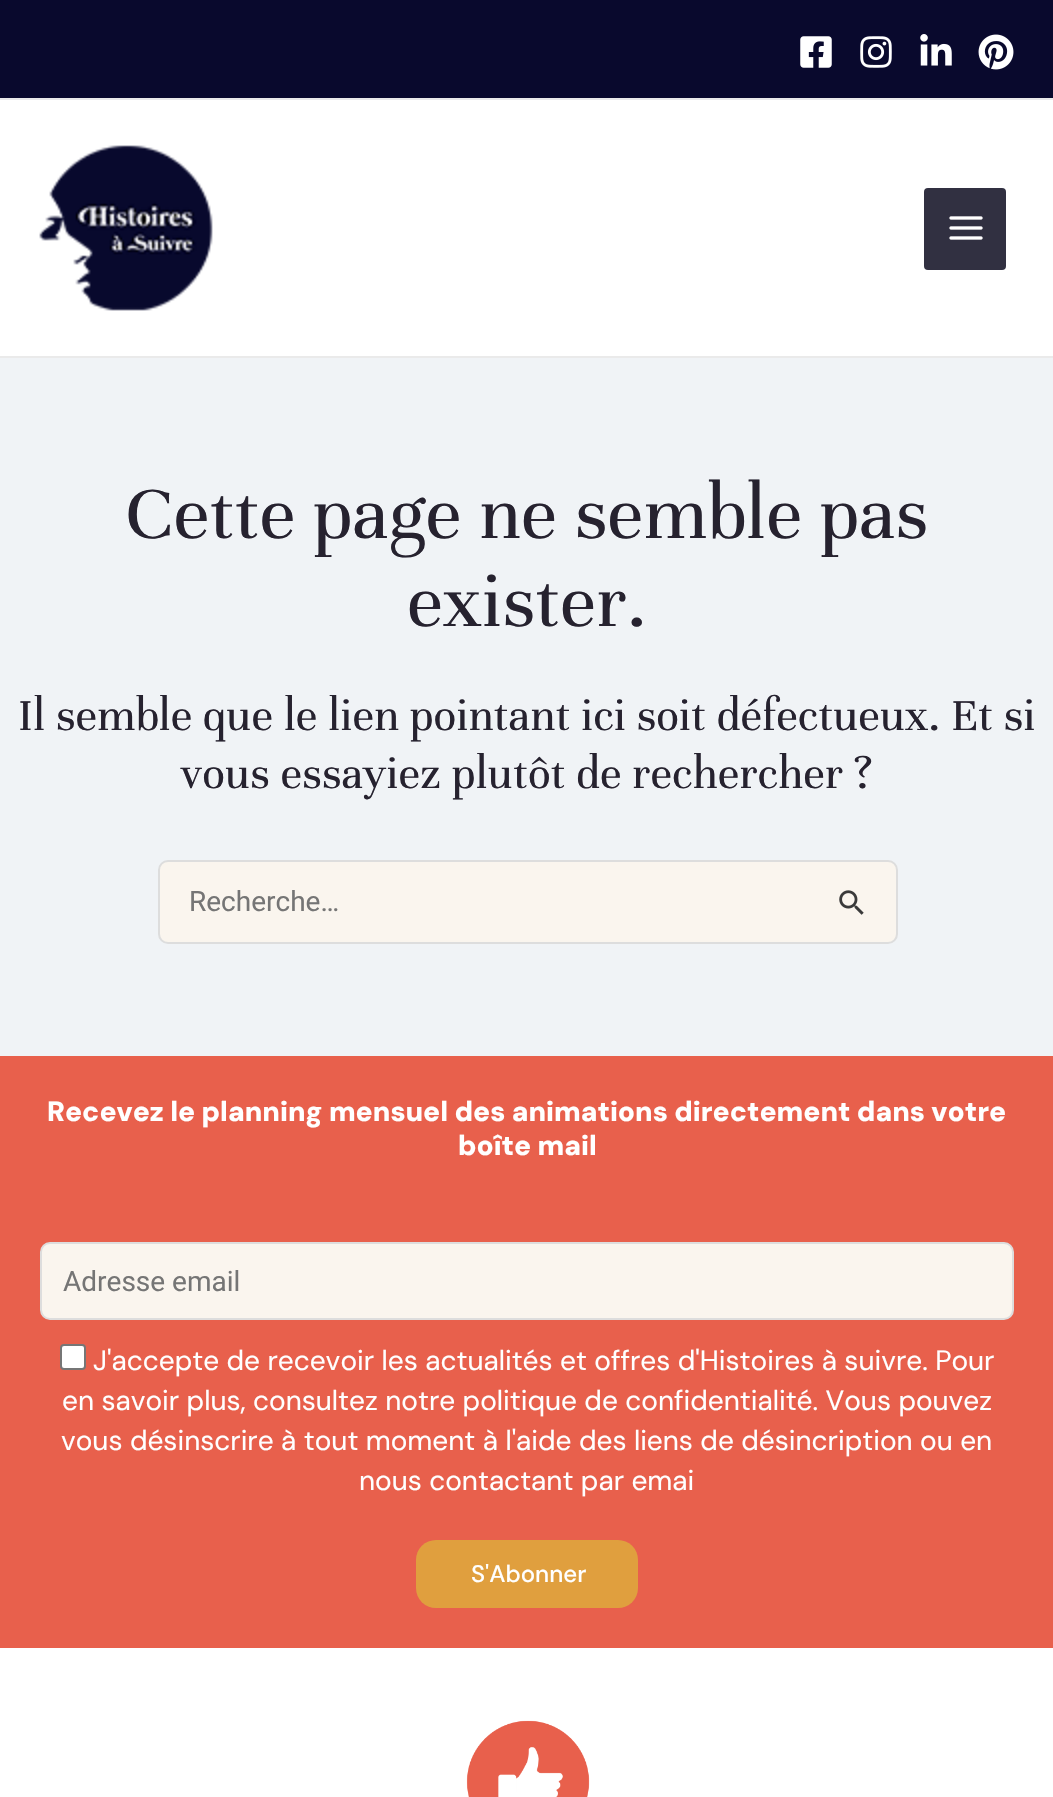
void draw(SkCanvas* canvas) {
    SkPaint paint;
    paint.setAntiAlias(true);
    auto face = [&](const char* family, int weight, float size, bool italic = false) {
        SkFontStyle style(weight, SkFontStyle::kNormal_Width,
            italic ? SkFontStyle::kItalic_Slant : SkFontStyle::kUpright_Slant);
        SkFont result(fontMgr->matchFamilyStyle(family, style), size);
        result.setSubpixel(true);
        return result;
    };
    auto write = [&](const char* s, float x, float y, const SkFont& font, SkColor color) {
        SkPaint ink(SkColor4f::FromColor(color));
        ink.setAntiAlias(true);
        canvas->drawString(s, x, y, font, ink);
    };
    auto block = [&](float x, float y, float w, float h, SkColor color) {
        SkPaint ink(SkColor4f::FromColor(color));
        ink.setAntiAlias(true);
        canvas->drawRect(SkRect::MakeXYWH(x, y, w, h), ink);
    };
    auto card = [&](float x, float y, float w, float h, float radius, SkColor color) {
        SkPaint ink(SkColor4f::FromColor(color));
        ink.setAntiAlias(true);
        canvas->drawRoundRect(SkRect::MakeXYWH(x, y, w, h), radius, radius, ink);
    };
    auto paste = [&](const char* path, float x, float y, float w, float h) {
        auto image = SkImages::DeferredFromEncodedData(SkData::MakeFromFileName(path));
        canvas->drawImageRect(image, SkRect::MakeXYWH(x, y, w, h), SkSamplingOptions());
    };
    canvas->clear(SkColorSetRGB(240, 243, 246));
    block(0, 0, 1053, 98, SkColorSetRGB(9, 9, 45));
    block(0, 98, 1053, 2, SkColorSetRGB(234, 234, 234));
    paste("pic1.png", 800, 36, 32, 32);
    paste("pic2.png", 860, 36, 32, 32);
    paste("pic3.png", 920, 34, 32, 32);
    paste("pic4.png", 978, 34, 36, 36);
    block(0, 100, 1053, 256, SK_ColorWHITE);
    block(0, 356, 1053, 2, SkColorSetRGB(234, 234, 234));
    paste("pic5.png", 39, 145, 174, 166);
    card(924, 188, 82, 82, 4, SkColorSetRGB(49, 48, 65));
    paste("pic6.png", 949, 216, 34, 24);
    auto kFont1 = face("Unna", 400, 80);
    write("Cette page ne semble pas", 125, 538, kFont1, SkColorSetRGB(38, 34, 47));
    write("exister.", 407, 626, kFont1, SkColorSetRGB(38, 34, 47));
    auto kFont2 = face("Unna", 400, 48);
    write("Il semble que le lien pointant ici soit défectueux. Et si", 18, 730, kFont2, SkColorSetRGB(38, 34, 47));
    write("vous essayiez plutôt de rechercher ?", 181, 788, kFont2, SkColorSetRGB(38, 34, 47));
    paint.setColor(SkColorSetRGB(250, 245, 238));
    canvas->drawRoundRect(SkRect::MakeXYWH(159, 861, 738, 82), 9, 9, paint);
    paint.setStyle(SkPaint::kStroke_Style);
    paint.setStrokeWidth(2);
    paint.setColor(SkColorSetRGB(221, 221, 221));
    canvas->drawRoundRect(SkRect::MakeXYWH(159, 861, 738, 82), 9, 9, paint);
    auto kFont3 = face("Roboto", 400, 28);
    write("Recherche…", 189, 911, kFont3, SkColorSetRGB(117, 117, 117));
    paste("pic7.png", 839, 890, 25, 25);
    block(0, 1056, 1053, 592, SkColorSetRGB(232, 96, 76));
    auto kFont4 = face("DM Sans", 900, 28);
    write("Recevez le planning mensuel des animations directement dans votre", 47, 1121, kFont4, SK_ColorWHITE);
    write("boîte mail", 458, 1155, kFont4, SK_ColorWHITE);
    paint.setStyle(SkPaint::kFill_Style);
    paint.setColor(SkColorSetRGB(250, 245, 238));
    canvas->drawRoundRect(SkRect::MakeXYWH(41, 1243, 972, 76), 9, 9, paint);
    paint.setStyle(SkPaint::kStroke_Style);
    paint.setColor(SkColorSetRGB(221, 221, 221));
    canvas->drawRoundRect(SkRect::MakeXYWH(41, 1243, 972, 76), 9, 9, paint);
    write("Adresse email", 63, 1291, kFont3, SkColorSetRGB(117, 117, 117));
    paint.setStyle(SkPaint::kFill_Style);
    paint.setColor(SK_ColorWHITE);
    canvas->drawRoundRect(SkRect::MakeXYWH(61, 1345, 24, 24), 3, 3, paint);
    paint.setStyle(SkPaint::kStroke_Style);
    paint.setColor(SkColorSetRGB(118, 118, 118));
    canvas->drawRoundRect(SkRect::MakeXYWH(61, 1345, 24, 24), 3, 3, paint);
    auto kFont5 = face("DM Sans", 400, 28);
    write("J'accepte de recevoir les actualités et offres d'Histoires à suivre. Pour", 93, 1370, kFont5, SK_ColorWHITE);
    write("en savoir plus, consultez notre politique de confidentialité. Vous pouvez", 62, 1410, kFont5, SK_ColorWHITE);
    write("vous désinscrire à tout moment à l'aide des liens de désincription ou en", 61, 1450, kFont5, SK_ColorWHITE);
    write("nous contactant par emai", 359, 1490, kFont5, SK_ColorWHITE);
    card(416, 1540, 222, 68, 20, SkColorSetRGB(224, 159, 62));
    auto kFont6 = face("DM Sans", 500, 24);
    write("S'Abonner", 471, 1582, kFont6, SK_ColorWHITE);
    block(0, 1648, 1053, 149, SK_ColorWHITE);
    paste("pic8.png", 466, 1720, 124, 77);
}
